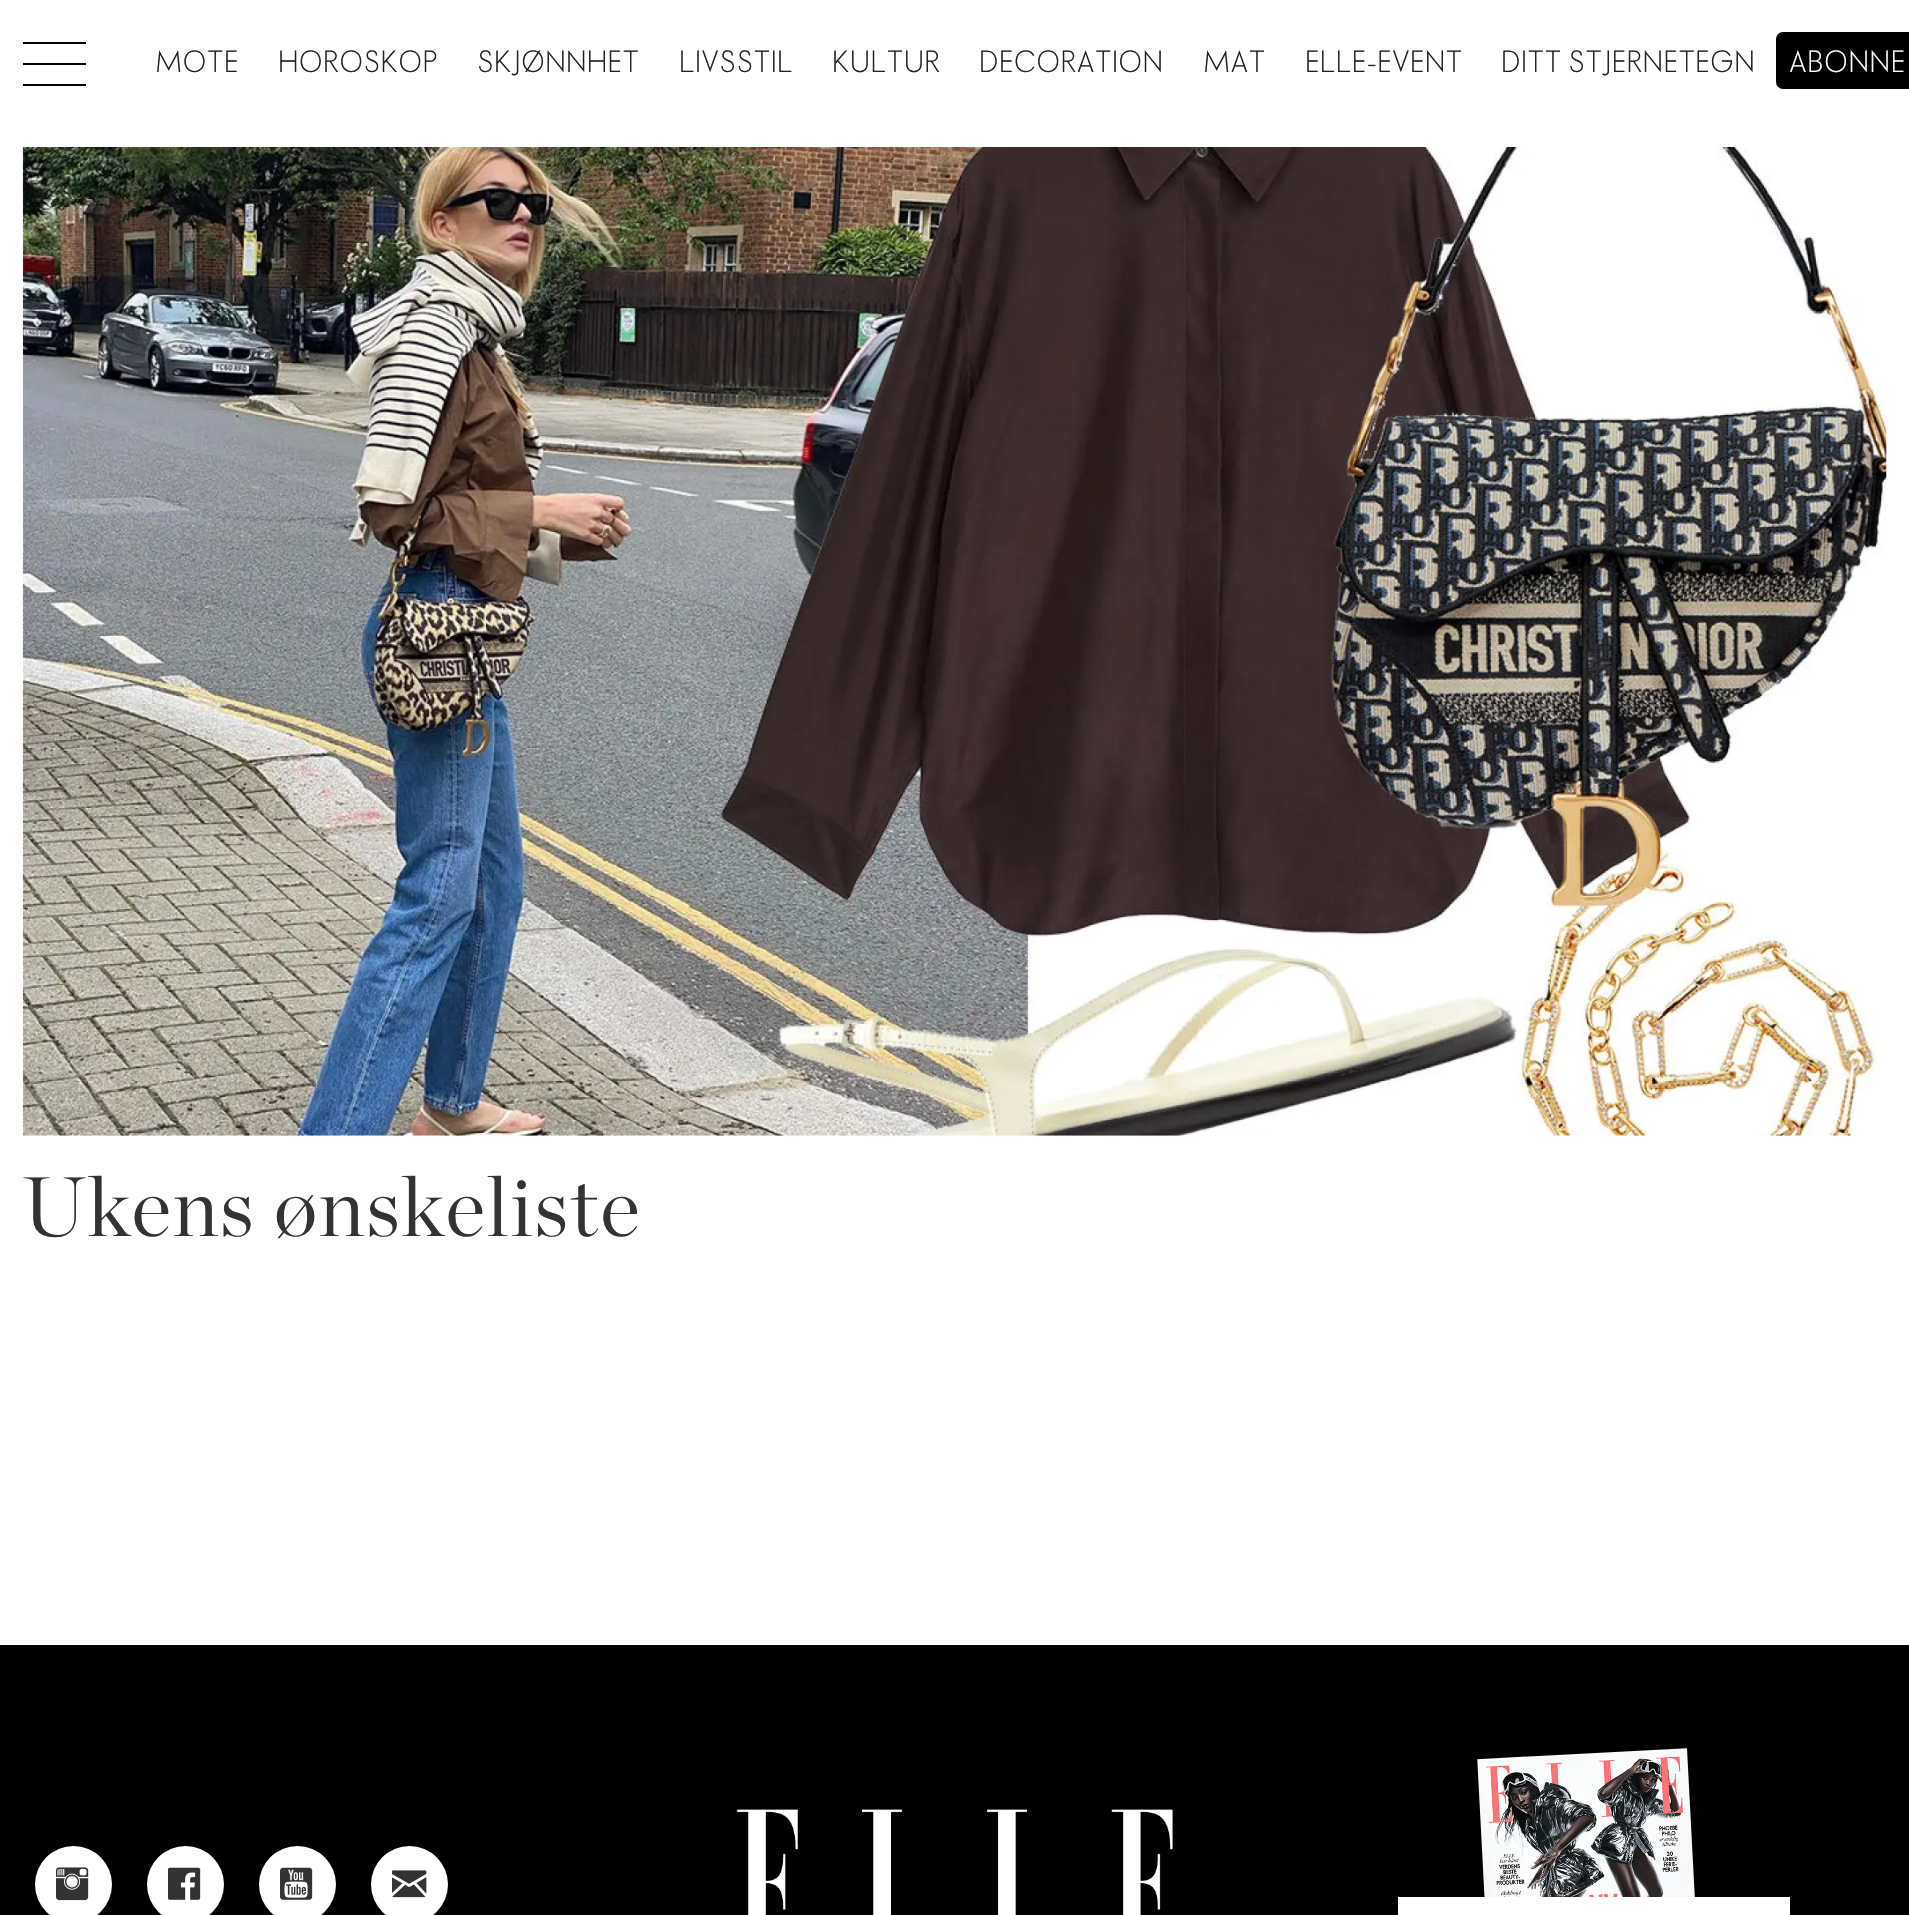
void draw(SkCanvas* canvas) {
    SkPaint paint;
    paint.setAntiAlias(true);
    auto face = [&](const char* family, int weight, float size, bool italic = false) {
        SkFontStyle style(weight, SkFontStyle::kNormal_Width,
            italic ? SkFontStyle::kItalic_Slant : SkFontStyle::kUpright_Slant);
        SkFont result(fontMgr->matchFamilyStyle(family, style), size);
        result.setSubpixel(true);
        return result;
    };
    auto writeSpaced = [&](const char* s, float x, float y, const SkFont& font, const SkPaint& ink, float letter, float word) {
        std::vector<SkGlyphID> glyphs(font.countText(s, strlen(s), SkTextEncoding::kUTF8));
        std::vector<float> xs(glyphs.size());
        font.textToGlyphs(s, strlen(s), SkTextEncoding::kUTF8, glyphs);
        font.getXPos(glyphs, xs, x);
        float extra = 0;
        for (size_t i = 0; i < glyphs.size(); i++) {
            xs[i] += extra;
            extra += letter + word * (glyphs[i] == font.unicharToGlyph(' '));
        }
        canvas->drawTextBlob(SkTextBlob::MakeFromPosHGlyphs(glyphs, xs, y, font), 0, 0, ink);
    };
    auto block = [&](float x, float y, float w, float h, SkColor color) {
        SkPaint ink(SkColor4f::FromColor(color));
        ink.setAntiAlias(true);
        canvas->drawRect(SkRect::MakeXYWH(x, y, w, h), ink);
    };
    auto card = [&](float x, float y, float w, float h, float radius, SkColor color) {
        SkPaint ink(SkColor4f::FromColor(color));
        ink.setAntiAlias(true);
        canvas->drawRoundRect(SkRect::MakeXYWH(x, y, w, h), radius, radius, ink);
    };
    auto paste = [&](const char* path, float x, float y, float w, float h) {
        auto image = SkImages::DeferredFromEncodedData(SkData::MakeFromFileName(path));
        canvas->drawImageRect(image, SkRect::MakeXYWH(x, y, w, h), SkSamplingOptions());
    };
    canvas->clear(SK_ColorWHITE);
    block(23, 63, 63, 2, SK_ColorBLACK);
    block(23, 42, 63, 2, SK_ColorBLACK);
    block(23, 84, 63, 2, SK_ColorBLACK);
    auto kFont1 = face("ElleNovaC", 400, 28);
    paint.setColor(SkColorSetRGB(34, 34, 34));
    writeSpaced("MOTE", 156, 72, kFont1, paint, 2.25f, 0);
    writeSpaced("HOROSKOP", 279, 72, kFont1, paint, 2.25f, 0);
    writeSpaced("SKJØNNHET", 478, 72, kFont1, paint, 2.25f, 0);
    writeSpaced("LIVSSTIL", 680, 72, kFont1, paint, 2.25f, 0);
    writeSpaced("KULTUR", 833, 72, kFont1, paint, 2.25f, 0);
    writeSpaced("DECORATION", 980, 72, kFont1, paint, 2.25f, 0);
    writeSpaced("MAT", 1204, 72, kFont1, paint, 2.25f, 0);
    writeSpaced("ELLE-EVENT", 1306, 72, kFont1, paint, 2.25f, 0);
    writeSpaced("DITT STJERNETEGN", 1502, 72, kFont1, paint, 2.25f, 0);
    card(1776, 32, 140, 57, 7, SK_ColorBLACK);
    paint.setColor(SK_ColorWHITE);
    writeSpaced("ABONNE", 1790, 72, kFont1, paint, 2.5f, 0);
    paste("pic1.png", 22, 147, 1865, 989);
    auto kFont2 = face("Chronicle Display", 300, 84);
    paint.setColor(SkColorSetRGB(51, 51, 51));
    writeSpaced("Ukens ønskeliste", 22, 1236, kFont2, paint, 1.75f, 0);
    block(0, 1645, 1909, 270, SK_ColorBLACK);
    paint.setColor(SK_ColorWHITE);
    canvas->drawCircle(73.5f, 1884.5f, 38.5f, paint);
    paste("pic2.png", 56, 1867, 33, 34);
    canvas->drawCircle(185.5f, 1884.5f, 38.5f, paint);
    paste("pic3.png", 168, 1867, 33, 33);
    canvas->drawCircle(297.5f, 1884.5f, 38.5f, paint);
    paste("pic4.png", 280, 1867, 33, 33);
    canvas->drawCircle(409.5f, 1884.5f, 38.5f, paint);
    paste("pic5.png", 392, 1870, 35, 28);
    paste("pic6.png", 736, 1809, 437, 106);
    paste("pic7.png", 1477, 1748, 218, 149);
    block(1398, 1897, 392, 18, SK_ColorWHITE);
}
